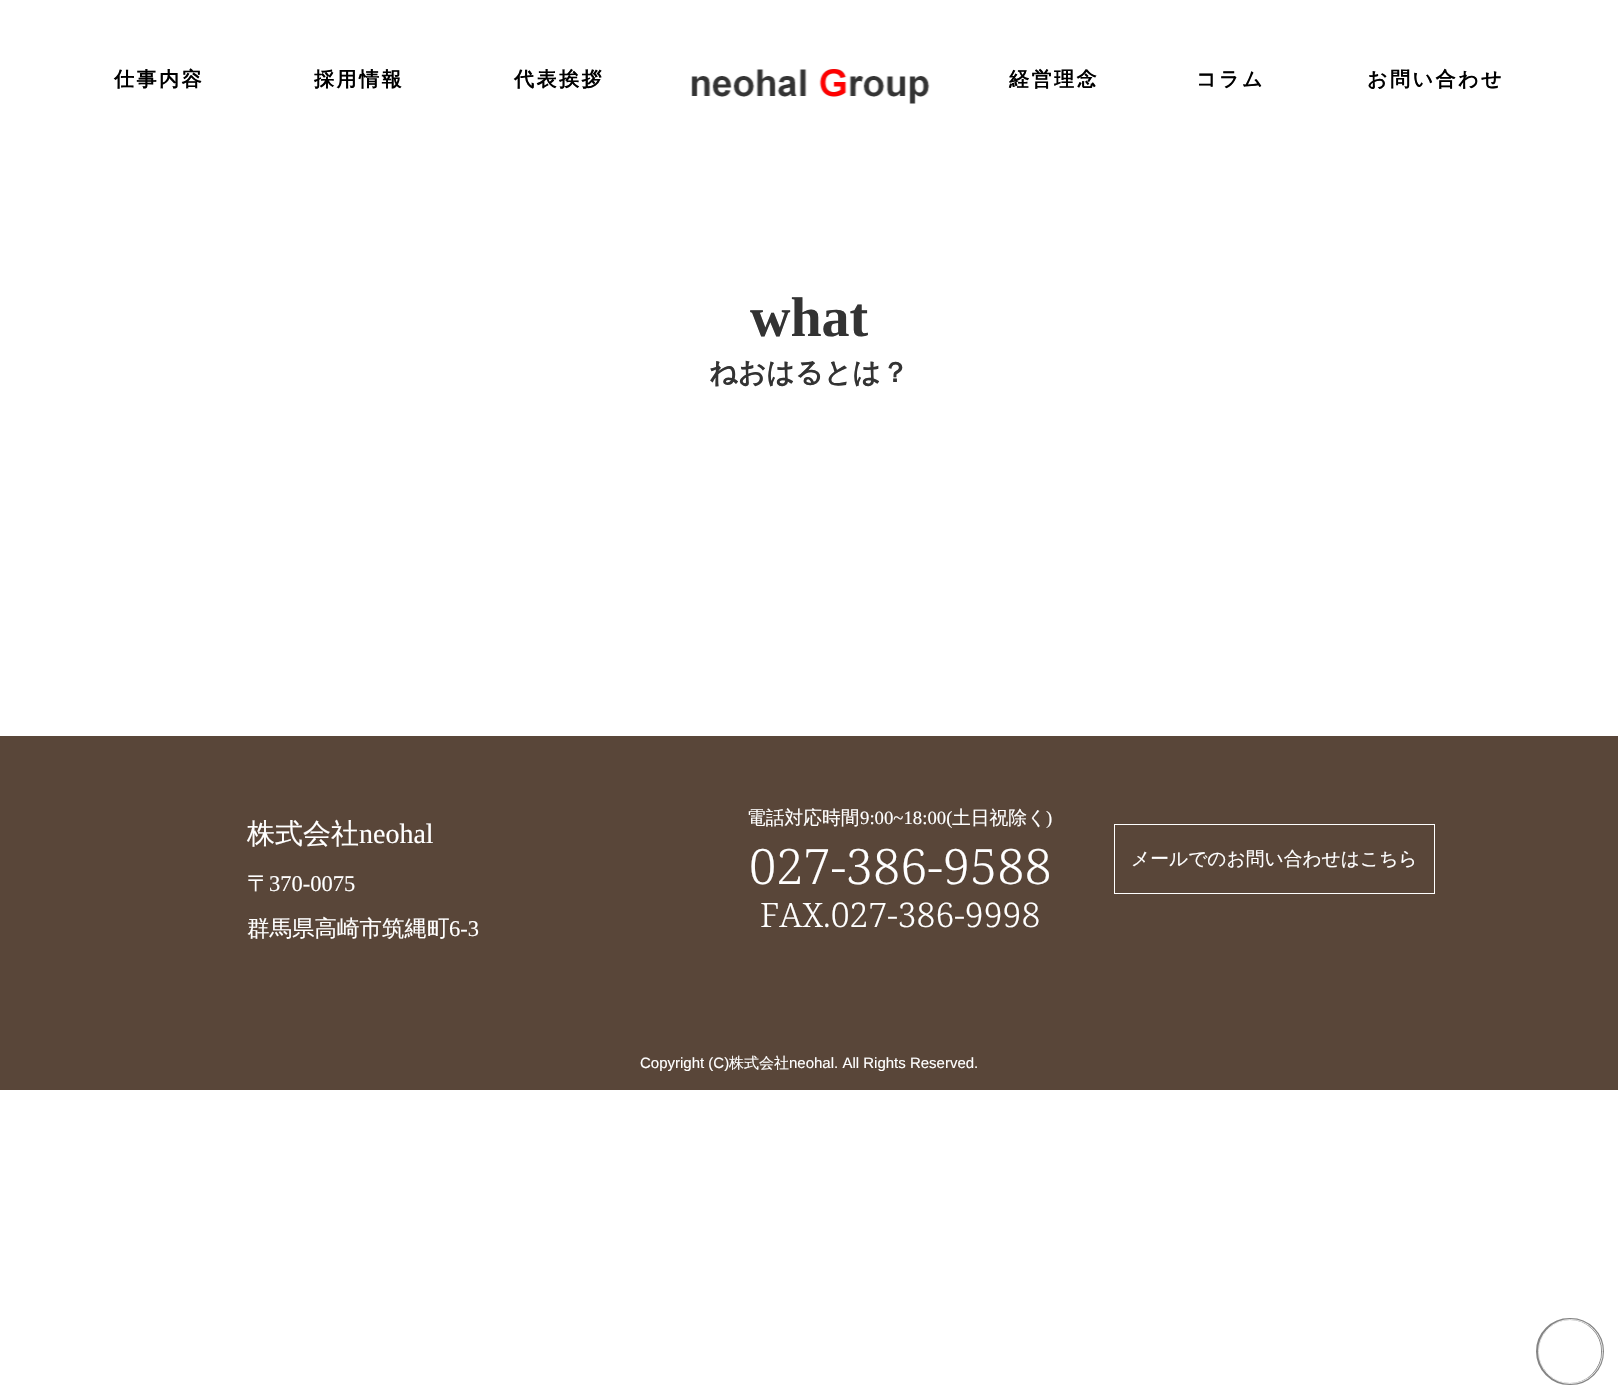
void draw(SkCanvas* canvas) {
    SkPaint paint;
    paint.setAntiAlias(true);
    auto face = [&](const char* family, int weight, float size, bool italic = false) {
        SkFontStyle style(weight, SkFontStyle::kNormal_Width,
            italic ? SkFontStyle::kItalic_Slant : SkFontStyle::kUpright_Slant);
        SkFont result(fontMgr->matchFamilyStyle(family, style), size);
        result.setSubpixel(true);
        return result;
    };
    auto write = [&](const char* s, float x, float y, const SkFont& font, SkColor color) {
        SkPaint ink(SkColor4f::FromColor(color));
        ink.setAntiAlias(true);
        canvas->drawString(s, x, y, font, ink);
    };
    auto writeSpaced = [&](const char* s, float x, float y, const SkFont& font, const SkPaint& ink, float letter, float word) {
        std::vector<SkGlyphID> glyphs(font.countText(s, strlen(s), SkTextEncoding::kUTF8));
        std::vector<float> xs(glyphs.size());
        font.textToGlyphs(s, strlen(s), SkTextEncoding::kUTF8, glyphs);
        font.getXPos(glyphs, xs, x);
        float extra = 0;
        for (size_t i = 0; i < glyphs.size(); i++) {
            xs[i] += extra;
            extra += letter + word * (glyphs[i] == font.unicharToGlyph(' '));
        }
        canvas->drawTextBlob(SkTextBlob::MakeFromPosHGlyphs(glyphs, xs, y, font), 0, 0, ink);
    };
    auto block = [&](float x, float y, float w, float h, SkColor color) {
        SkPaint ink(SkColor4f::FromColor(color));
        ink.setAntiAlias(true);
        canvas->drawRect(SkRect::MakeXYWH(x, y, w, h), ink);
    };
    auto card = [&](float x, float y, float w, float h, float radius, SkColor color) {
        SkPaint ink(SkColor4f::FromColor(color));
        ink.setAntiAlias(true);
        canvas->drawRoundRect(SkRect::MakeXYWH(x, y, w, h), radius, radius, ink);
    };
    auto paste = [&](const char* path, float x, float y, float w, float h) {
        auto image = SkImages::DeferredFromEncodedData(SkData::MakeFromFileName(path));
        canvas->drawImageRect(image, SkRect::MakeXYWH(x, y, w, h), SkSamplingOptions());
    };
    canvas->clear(SK_ColorWHITE);
    auto kFont1 = face("WenQuanYi Zen Hei", 700, 20);
    paint.setColor(SK_ColorBLACK);
    writeSpaced("仕事内容", 114, 86, kFont1, paint, 2.5f, 0);
    writeSpaced("採用情報", 314, 86, kFont1, paint, 2.5f, 0);
    writeSpaced("代表挨拶", 514, 86, kFont1, paint, 2.5f, 0);
    writeSpaced("経営理念", 1009, 86, kFont1, paint, 2.5f, 0);
    writeSpaced("コラム", 1196, 86, kFont1, paint, 2.5f, 0);
    writeSpaced("お問い合わせ", 1367, 86, kFont1, paint, 2.5f, 0);
    paste("pic1.png", 691, 69, 239, 35);
    auto kFont2 = face("Liberation Serif", 700, 56);
    write("what", 750, 336, kFont2, SkColorSetRGB(51, 51, 51));
    auto kFont3 = face("WenQuanYi Zen Hei", 700, 28);
    write("ねおはるとは？", 709, 382, kFont3, SkColorSetRGB(51, 51, 51));
    block(0, 736, 1618, 354, SkColorSetRGB(89, 70, 57));
    auto kFont4 = face("WenQuanYi Zen Hei", 500, 28);
    write("株式会社", 247, 843, kFont4, SK_ColorWHITE);
    auto kFont5 = face("Liberation Serif", 400, 28);
    write("neohal", 359, 843, kFont5, SK_ColorWHITE);
    auto kFont6 = face("WenQuanYi Zen Hei", 500, 22.5f);
    write("〒", 247, 891, kFont6, SK_ColorWHITE);
    auto kFont7 = face("Liberation Serif", 400, 22.5f);
    write("370-0075", 269, 891, kFont7, SK_ColorWHITE);
    write("群馬県高崎市筑縄町", 247, 936, kFont6, SK_ColorWHITE);
    write("6-3", 449, 936, kFont7, SK_ColorWHITE);
    auto kFont8 = face("WenQuanYi Zen Hei", 500, 18.75f);
    write("電話対応時間", 747, 824, kFont8, SK_ColorWHITE);
    auto kFont9 = face("Liberation Serif", 400, 18.75f);
    write("9:00~18:00(", 860, 824, kFont9, SK_ColorWHITE);
    write("土日祝除く", 952, 824, kFont8, SK_ColorWHITE);
    write(")", 1046, 824, kFont9, SK_ColorWHITE);
    auto kFont10 = face("Noto Serif", 300, 48.75f);
    write("027-386-9588", 749, 884, kFont10, SK_ColorWHITE);
    auto kFont11 = face("Noto Serif", 300, 33.75f);
    write("FAX.027-386-9998", 760, 927, kFont11, SK_ColorWHITE);
    paint.setStyle(SkPaint::kStroke_Style);
    paint.setStrokeWidth(1);
    paint.setColor(SK_ColorWHITE);
    canvas->drawRect(SkRect::MakeXYWH(1114.5f, 824.5f, 320, 69), paint);
    write("メールでのお問い合わせはこちら", 1131, 865, kFont8, SK_ColorWHITE);
    auto kFont12 = face("Liberation Sans", 400, 15);
    write("Copyright (C)", 640, 1068, kFont12, SK_ColorWHITE);
    auto kFont13 = face("WenQuanYi Zen Hei", 500, 15);
    write("株式会社", 729, 1068, kFont13, SK_ColorWHITE);
    write("neohal. All Rights Reserved.", 789, 1068, kFont12, SK_ColorWHITE);
    paint.setStrokeWidth(3);
    paint.setColor(SkColorSetRGB(133, 133, 133));
    canvas->drawRoundRect(SkRect::MakeXYWH(1537.5f, 1319.5f, 65, 64), 32, 32, paint);
    paint.setStrokeWidth(1);
    paint.setColor(SkColorSetARGB(204, 255, 255, 255));
    canvas->drawCircle(1570.5f, 1351.5f, 32, paint);
    card(1539, 1320, 62, 63, 31, SK_ColorWHITE);
}
